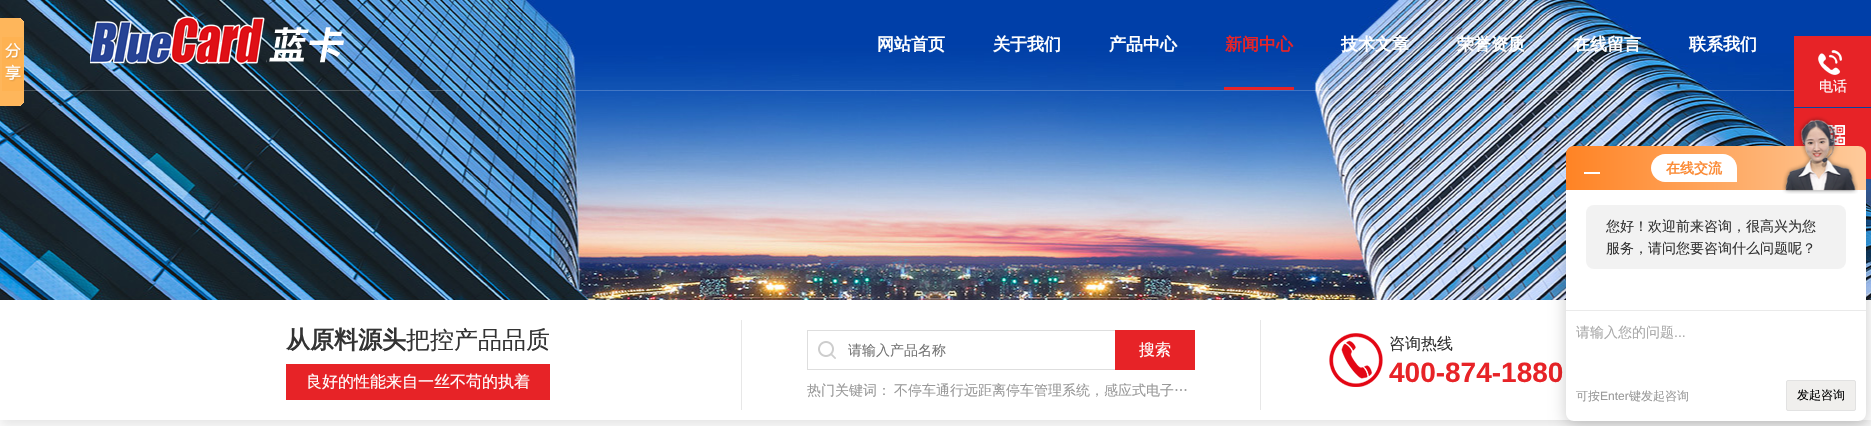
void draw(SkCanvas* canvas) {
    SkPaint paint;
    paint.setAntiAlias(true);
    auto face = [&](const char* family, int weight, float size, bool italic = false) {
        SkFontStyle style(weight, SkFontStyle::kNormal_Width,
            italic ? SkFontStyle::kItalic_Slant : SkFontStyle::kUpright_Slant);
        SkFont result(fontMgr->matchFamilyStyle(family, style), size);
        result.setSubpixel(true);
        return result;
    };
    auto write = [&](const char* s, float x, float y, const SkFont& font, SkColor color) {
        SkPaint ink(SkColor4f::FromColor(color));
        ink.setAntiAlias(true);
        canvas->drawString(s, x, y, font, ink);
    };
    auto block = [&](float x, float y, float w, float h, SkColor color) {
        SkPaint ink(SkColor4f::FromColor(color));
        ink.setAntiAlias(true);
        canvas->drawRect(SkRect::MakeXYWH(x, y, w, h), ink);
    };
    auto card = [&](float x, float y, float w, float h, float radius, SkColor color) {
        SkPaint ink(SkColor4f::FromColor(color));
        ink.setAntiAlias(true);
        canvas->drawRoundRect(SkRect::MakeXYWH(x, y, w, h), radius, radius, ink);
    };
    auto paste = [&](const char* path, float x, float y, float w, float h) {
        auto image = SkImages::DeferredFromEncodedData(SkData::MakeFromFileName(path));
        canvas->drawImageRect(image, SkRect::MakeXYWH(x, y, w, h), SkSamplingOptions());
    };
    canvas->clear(SK_ColorWHITE);
    paste("pic1.png", 0, 0, 1871, 300);
    paste("pic2.png", 0, 18, 24, 88);
    block(24, 90, 1770, 1, SkColorSetARGB(51, 255, 255, 255));
    paste("pic3.png", 90, 16, 254, 48);
    auto kFont1 = face("WenQuanYi Zen Hei", 700, 17);
    write("网站首页", 877, 50, kFont1, SK_ColorWHITE);
    write("关于我们", 993, 50, kFont1, SK_ColorWHITE);
    write("产品中心", 1109, 50, kFont1, SK_ColorWHITE);
    write("新闻中心", 1225, 50, kFont1, SkColorSetRGB(231, 35, 39));
    block(1224, 87, 70, 3, SkColorSetRGB(231, 35, 39));
    write("技术文章", 1341, 50, kFont1, SK_ColorWHITE);
    write("荣誉资质", 1457, 50, kFont1, SK_ColorWHITE);
    write("在线留言", 1573, 50, kFont1, SK_ColorWHITE);
    write("联系我们", 1689, 50, kFont1, SK_ColorWHITE);
    block(1794, 36, 77, 71, SkColorSetRGB(231, 35, 39));
    paste("pic4.png", 1818, 50, 24, 25);
    auto kFont2 = face("WenQuanYi Zen Hei", 500, 14);
    write("电话", 1819, 91, kFont2, SK_ColorWHITE);
    block(1794, 108, 77, 71, SkColorSetRGB(231, 35, 39));
    paste("pic5.png", 1827, 125, 18, 20);
    canvas->save();
    canvas->clipRect(SkRect::MakeXYWH(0, 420, 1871, 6));
    paint.setColor(SkColorSetARGB(26, 0, 0, 0));
    paint.setMaskFilter(SkMaskFilter::MakeBlur(kNormal_SkBlurStyle, 6));
    canvas->drawRect(SkRect::MakeXYWH(0, 306, 1871, 120), paint);
    paint.setMaskFilter(nullptr);
    canvas->restore();
    auto kFont3 = face("WenQuanYi Zen Hei", 700, 24);
    write("从原料源头", 286, 348, kFont3, SkColorSetRGB(51, 51, 51));
    auto kFont4 = face("WenQuanYi Zen Hei", 500, 24);
    write("把控产品品质", 406, 348, kFont4, SkColorSetRGB(51, 51, 51));
    block(286, 364, 264, 36, SkColorSetRGB(231, 35, 39));
    auto kFont5 = face("WenQuanYi Zen Hei", 500, 16);
    write("良好的性能来自一丝不苟的执着", 306, 387, kFont5, SK_ColorWHITE);
    block(1260, 320, 1, 90, SkColorSetRGB(231, 231, 231));
    block(741, 320, 1, 90, SkColorSetRGB(231, 231, 231));
    paste("pic6.png", 818, 341, 18, 18);
    block(807, 330, 308, 1, SkColorSetRGB(222, 222, 222));
    block(807, 369, 308, 1, SkColorSetRGB(222, 222, 222));
    block(807, 330, 1, 40, SkColorSetRGB(222, 222, 222));
    write("请输入产品名称", 848, 355, kFont2, SkColorSetRGB(117, 117, 117));
    block(1115, 330, 80, 40, SkColorSetRGB(231, 35, 39));
    write("搜索", 1139, 355, kFont5, SK_ColorWHITE);
    write("热门关键词：", 807, 395, kFont2, SkColorSetRGB(153, 153, 153));
    write("不停车通行远距离停车管理系统，感应式电子…", 894, 395, kFont2, SkColorSetRGB(153, 153, 153));
    paste("pic7.png", 1329, 333, 54, 54);
    write("咨询热线", 1389, 349, kFont5, SkColorSetRGB(51, 51, 51));
    canvas->save();
    canvas->clipRect(SkRect::MakeXYWH(1389, 358, 197, 30));
    auto kFont6 = face("Liberation Sans", 700, 28);
    write("400-874-1880", 1389, 382, kFont6, SkColorSetRGB(231, 35, 39));
    canvas->restore();
    paint.setColor(SkColorSetARGB(51, 0, 0, 0));
    paint.setMaskFilter(SkMaskFilter::MakeBlur(kNormal_SkBlurStyle, 8));
    canvas->drawRoundRect(SkRect::MakeXYWH(1566, 194, 300, 231), 8, 8, paint);
    paint.setMaskFilter(nullptr);
    {
        const SkColor colors[] = {SkColorSetRGB(255, 131, 36), SkColorSetRGB(254, 203, 156)};
        const float stops[] = {0, 1};
        const SkPoint ends[] = {{1566, 168}, {1866, 168}};
        paint.setShader(SkGradientShader::MakeLinear(ends, colors, stops, 2, SkTileMode::kClamp));
        paint.setAlpha(255);
    }
    canvas->drawPath(SkPathBuilder().moveTo(1574, 146).lineTo(1858, 146).cubicTo(1862.5f, 146, 1866, 149.5f, 1866, 154).lineTo(1866, 190).lineTo(1566, 190).lineTo(1566, 154).cubicTo(1566, 149.5f, 1569.5f, 146, 1574, 146).close().detach(), paint);
    block(1584, 172, 16, 2, SK_ColorWHITE);
    paint.setShader(nullptr);
    paint.setColor(SK_ColorWHITE);
    canvas->drawPath(SkPathBuilder().moveTo(1665, 154).lineTo(1723, 154).cubicTo(1730.5f, 154, 1737, 160.5f, 1737, 168).lineTo(1737, 182).lineTo(1665, 182).cubicTo(1657.5f, 182, 1651, 175.5f, 1651, 168).cubicTo(1651, 160.5f, 1657.5f, 154, 1665, 154).close().detach(), paint);
    auto kFont7 = face("WenQuanYi Zen Hei", 700, 14);
    write("在线交流", 1666, 173, kFont7, SkColorSetRGB(251, 139, 54));
    canvas->drawPath(SkPathBuilder().moveTo(1566, 190).lineTo(1866, 190).lineTo(1866, 413).cubicTo(1866, 417.5f, 1862.5f, 421, 1858, 421).lineTo(1574, 421).cubicTo(1569.5f, 421, 1566, 417.5f, 1566, 413).close().detach(), paint);
    paste("pic8.png", 1782, 116, 76, 78);
    card(1586, 205, 260, 64, 8, SkColorSetRGB(242, 242, 242));
    write("您好！欢迎前来咨询，很高兴为您", 1606, 231, kFont2, SkColorSetRGB(51, 51, 51));
    write("服务，请问您要咨询什么问题呢？", 1606, 253, kFont2, SkColorSetRGB(51, 51, 51));
    block(1566, 310, 300, 1, SkColorSetRGB(234, 234, 234));
    write("请输入您的问题", 1576, 337, kFont2, SkColorSetRGB(170, 170, 170));
    auto kFont8 = face("Liberation Sans", 400, 14);
    write("...", 1674, 337, kFont8, SkColorSetRGB(170, 170, 170));
    auto kFont9 = face("WenQuanYi Zen Hei", 500, 12);
    write("可按", 1576, 400, kFont9, SkColorSetRGB(153, 153, 153));
    auto kFont10 = face("Liberation Sans", 400, 12);
    write("Enter", 1600, 400, kFont10, SkColorSetRGB(153, 153, 153));
    write("键发起咨询", 1629, 400, kFont9, SkColorSetRGB(153, 153, 153));
    paint.setColor(SkColorSetRGB(240, 239, 237));
    canvas->drawRoundRect(SkRect::MakeXYWH(1786.5f, 380.5f, 69, 30), 1.5f, 1.5f, paint);
    paint.setStyle(SkPaint::kStroke_Style);
    paint.setStrokeWidth(1);
    paint.setColor(SkColorSetRGB(226, 226, 226));
    canvas->drawRoundRect(SkRect::MakeXYWH(1786.5f, 380.5f, 69, 30), 1.5f, 1.5f, paint);
    write("发起咨询", 1797, 399, kFont9, SK_ColorBLACK);
}
